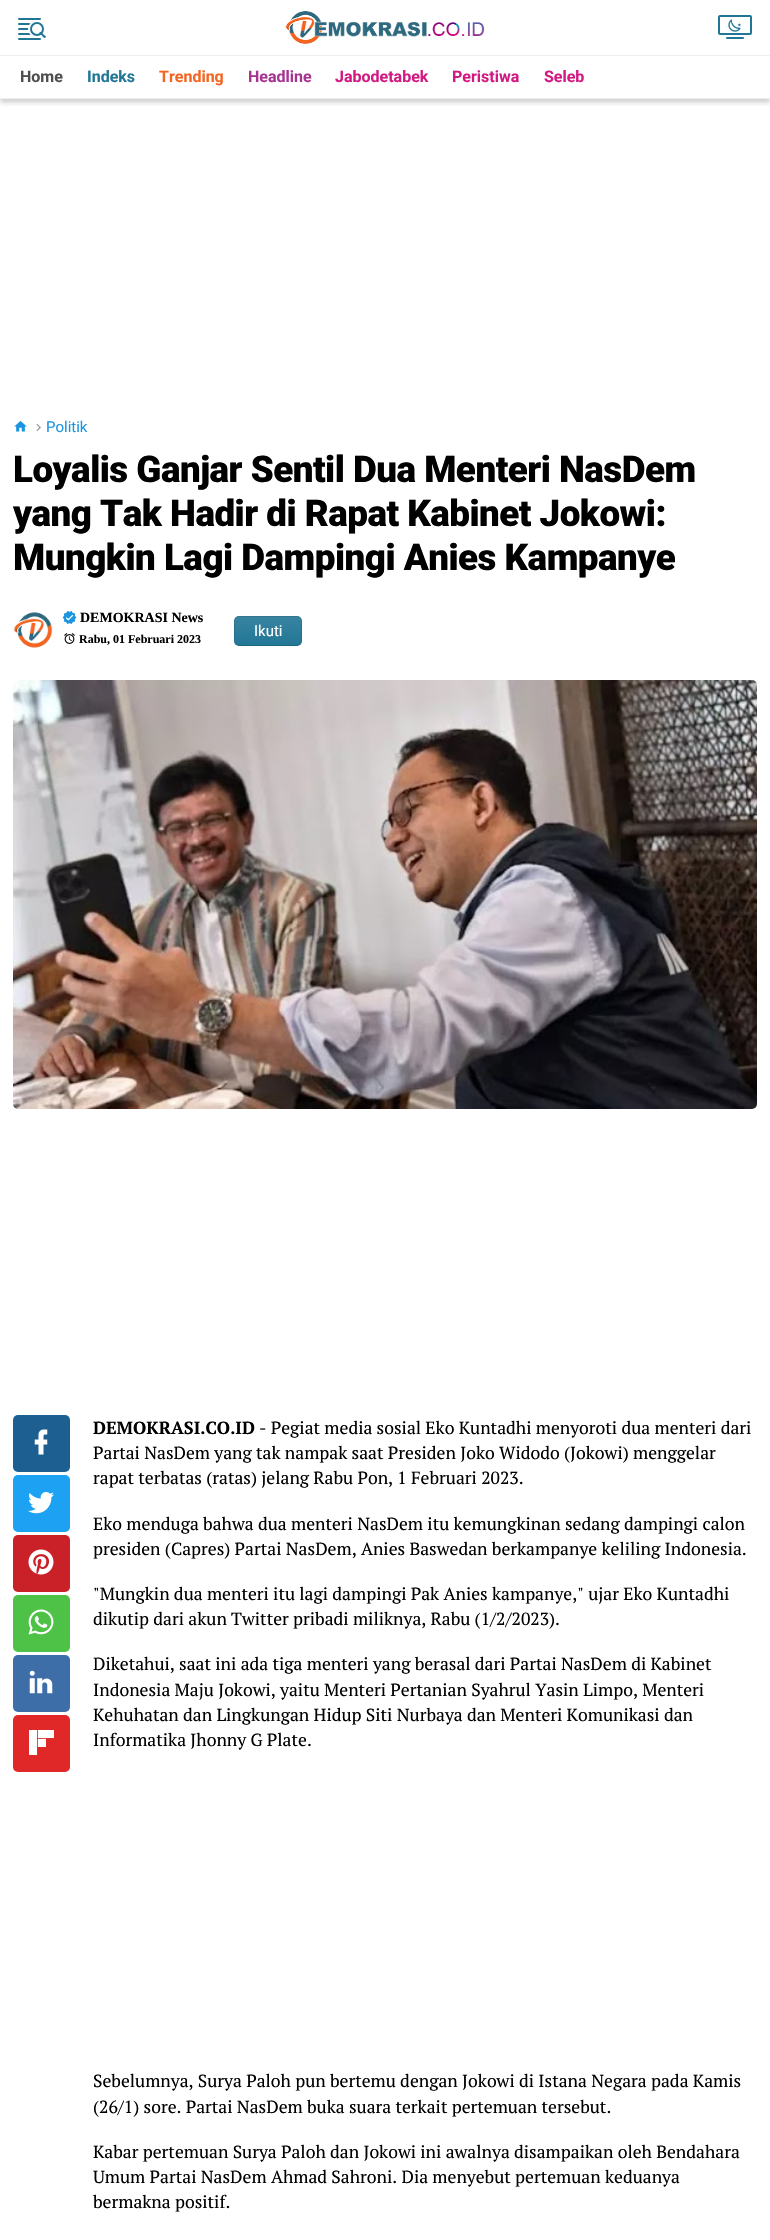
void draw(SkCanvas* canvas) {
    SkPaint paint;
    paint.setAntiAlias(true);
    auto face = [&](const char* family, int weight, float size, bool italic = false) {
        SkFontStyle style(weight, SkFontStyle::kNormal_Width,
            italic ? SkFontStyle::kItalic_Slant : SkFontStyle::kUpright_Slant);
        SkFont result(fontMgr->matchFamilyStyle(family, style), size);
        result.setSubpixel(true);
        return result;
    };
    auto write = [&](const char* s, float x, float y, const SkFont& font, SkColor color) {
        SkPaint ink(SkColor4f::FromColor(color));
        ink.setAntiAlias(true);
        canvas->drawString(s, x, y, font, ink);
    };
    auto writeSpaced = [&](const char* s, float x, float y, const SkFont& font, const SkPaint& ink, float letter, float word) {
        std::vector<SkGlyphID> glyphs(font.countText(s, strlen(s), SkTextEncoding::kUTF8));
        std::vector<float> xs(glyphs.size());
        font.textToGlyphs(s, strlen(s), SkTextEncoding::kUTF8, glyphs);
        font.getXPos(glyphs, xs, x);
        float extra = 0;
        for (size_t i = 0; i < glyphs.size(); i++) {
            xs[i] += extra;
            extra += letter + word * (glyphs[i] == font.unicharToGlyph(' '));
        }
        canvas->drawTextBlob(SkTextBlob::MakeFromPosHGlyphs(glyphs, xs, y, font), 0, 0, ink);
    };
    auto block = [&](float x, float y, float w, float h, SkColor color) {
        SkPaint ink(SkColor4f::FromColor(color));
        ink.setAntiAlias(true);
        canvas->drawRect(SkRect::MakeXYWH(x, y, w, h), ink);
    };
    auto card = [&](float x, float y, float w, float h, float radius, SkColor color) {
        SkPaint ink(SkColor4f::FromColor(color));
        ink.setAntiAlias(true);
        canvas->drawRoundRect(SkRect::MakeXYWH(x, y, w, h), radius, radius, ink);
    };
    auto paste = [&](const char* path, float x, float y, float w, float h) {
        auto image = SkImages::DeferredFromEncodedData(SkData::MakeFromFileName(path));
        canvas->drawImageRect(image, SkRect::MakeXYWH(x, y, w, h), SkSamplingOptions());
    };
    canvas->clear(SK_ColorWHITE);
    canvas->save();
    canvas->clipRect(SkRect::MakeXYWH(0, 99, 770, 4));
    paint.setColor(SkColorSetARGB(26, 0, 0, 0));
    paint.setMaskFilter(SkMaskFilter::MakeBlur(kNormal_SkBlurStyle, 2.5f));
    canvas->drawRect(SkRect::MakeXYWH(0, 2, 770, 99), paint);
    paint.setMaskFilter(nullptr);
    canvas->restore();
    card(18, 18, 23, 2, 1, SkColorSetRGB(33, 118, 150));
    card(18, 23, 23, 2, 1, SkColorSetRGB(33, 118, 150));
    card(18, 28, 23, 2, 1, SkColorSetRGB(33, 118, 150));
    card(18, 33, 23, 2, 1, SkColorSetRGB(33, 118, 150));
    paint.setColor(SK_ColorWHITE);
    canvas->drawCircle(36, 29, 8, paint);
    paint.setStyle(SkPaint::kStroke_Style);
    paint.setStrokeWidth(2);
    paint.setColor(SkColorSetRGB(33, 118, 150));
    canvas->drawCircle(37, 29, 6, paint);
    paint.setStyle(SkPaint::kFill_Style);
    canvas->drawPath(SkPathBuilder().moveTo(39.5f, 32.5f).cubicTo(41, 31, 42.5f, 33.5f, 43.5f, 34.5f).cubicTo(44, 35, 47, 36.5f, 45.5f, 37.5f).cubicTo(44.5f, 39, 42.5f, 36.5f, 42, 35.5f).cubicTo(41.5f, 35, 38.5f, 33.5f, 39.5f, 32.5f).close().detach(), paint);
    card(18, 38, 23, 2, 1, SkColorSetRGB(33, 118, 150));
    paste("pic1.png", 285, 11, 200, 33);
    paint.setStyle(SkPaint::kStroke_Style);
    canvas->drawRoundRect(SkRect::MakeXYWH(719, 16, 32, 18), 1, 1, paint);
    paste("pic2.png", 728, 19, 13, 13);
    card(732, 17, 8, 7, 3.5f, SK_ColorWHITE);
    card(726, 37, 18, 2, 1, SkColorSetRGB(33, 118, 150));
    canvas->save();
    canvas->clipRect(SkRect::MakeXYWH(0, 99, 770, 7));
    paint.setStyle(SkPaint::kFill_Style);
    paint.setColor(SkColorSetARGB(26, 0, 0, 0));
    paint.setMaskFilter(SkMaskFilter::MakeBlur(kNormal_SkBlurStyle, 2.5f));
    canvas->drawRect(SkRect::MakeXYWH(0, 60, 770, 44), paint);
    paint.setMaskFilter(nullptr);
    canvas->restore();
    block(0, 55, 770, 1, SkColorSetRGB(238, 238, 238));
    block(0, 98, 770, 1, SkColorSetRGB(238, 238, 238));
    auto kFont1 = face("Roboto", 700, 16);
    write("Home", 20, 82, kFont1, SkColorSetRGB(78, 78, 78));
    write("Indeks", 87, 82, kFont1, SkColorSetRGB(33, 118, 150));
    write("Trending", 159, 82, kFont1, SkColorSetRGB(244, 101, 33));
    write("Headline", 248, 82, kFont1, SkColorSetRGB(168, 52, 145));
    write("Jabodetabek", 335, 82, kFont1, SkColorSetRGB(209, 27, 131));
    write("Peristiwa", 452, 82, kFont1, SkColorSetRGB(209, 27, 131));
    write("Seleb", 544, 82, kFont1, SkColorSetRGB(209, 27, 131));
    paste("pic3.png", 14, 421, 13, 11);
    paste("pic4.png", 36, 423, 5, 9);
    auto kFont2 = face("Roboto", 400, 15);
    write("Politik", 46, 432, kFont2, SkColorSetRGB(27, 149, 224));
    auto kFont3 = face("Roboto", 900, 36.75f);
    paint.setColor(SK_ColorBLACK);
    writeSpaced("Loyalis Ganjar Sentil Dua Menteri NasDem", 13, 482, kFont3, paint, -0.5f, 0);
    writeSpaced("yang Tak Hadir di Rapat Kabinet Jokowi:", 13, 526, kFont3, paint, -0.5f, 0);
    writeSpaced("Mungkin Lagi Dampingi Anies Kampanye", 13, 570, kFont3, paint, -0.5f, 0);
    paste("pic5.png", 13, 612, 40, 36);
    paste("pic6.png", 62, 611, 15, 13);
    auto kFont4 = face("Liberation Serif", 700, 14);
    write("DEMOKRASI News", 80, 622, kFont4, SK_ColorBLACK);
    card(234, 616, 68, 30, 5, SkColorSetRGB(33, 118, 150));
    {
        const SkColor colors[] = {SkColorSetARGB(26, 255, 255, 255), SkColorSetARGB(0, 255, 255, 255)};
        const float stops[] = {0, 1};
        const SkPoint ends[] = {{268, 616}, {268, 646}};
        paint.setShader(SkGradientShader::MakeLinear(ends, colors, stops, 2, SkTileMode::kClamp));
        paint.setAlpha(255);
    }
    canvas->drawRoundRect(SkRect::MakeXYWH(234, 616, 68, 30), 5, 5, paint);
    paint.setShader(nullptr);
    paint.setColor(SkColorSetARGB(15, 16, 22, 26));
    canvas->drawPath(SkPathBuilder().moveTo(234, 640).cubicTo(234, 648, 243, 646, 249, 646).lineTo(287, 646).cubicTo(293, 646, 302, 648, 302, 640).cubicTo(302, 643, 300, 645, 297, 645).lineTo(239, 645).cubicTo(236, 645, 234, 643, 234, 640).close().detach(), paint);
    paint.setStyle(SkPaint::kStroke_Style);
    paint.setStrokeWidth(1);
    paint.setColor(SkColorSetARGB(31, 16, 22, 26));
    canvas->drawRoundRect(SkRect::MakeXYWH(234.5f, 616.5f, 67, 29), 4.5f, 4.5f, paint);
    write("Ikuti", 254, 636, kFont2, SK_ColorWHITE);
    paste("pic7.png", 64, 633, 11, 11);
    auto kFont5 = face("Liberation Serif", 700, 12);
    write("Rabu, 01 Februari 2023", 79, 643, kFont5, SK_ColorBLACK);
    paste("pic8.png", 13, 680, 744, 429);
    card(13, 1415, 57, 57, 5, SkColorSetRGB(30, 95, 145));
    paste("pic9.png", 34, 1429, 14, 26);
    card(13, 1475, 57, 57, 5, SkColorSetRGB(29, 161, 242));
    paste("pic10.png", 28, 1492, 26, 22);
    card(13, 1535, 57, 57, 5, SkColorSetRGB(202, 33, 40));
    paste("pic11.png", 28, 1549, 26, 26);
    card(13, 1595, 57, 57, 5, SkColorSetRGB(77, 194, 71));
    paste("pic12.png", 28, 1609, 26, 26);
    card(13, 1655, 57, 57, 5, SkColorSetRGB(62, 110, 167));
    paste("pic13.png", 29, 1670, 24, 24);
    card(13, 1715, 57, 57, 5, SkColorSetRGB(225, 40, 40));
    paste("pic14.png", 29, 1730, 25, 25);
    auto kFont6 = face("PT Serif", 700, 17.6f);
    write("DEMOKRASI.CO.ID", 93, 1434, kFont6, SK_ColorBLACK);
    auto kFont7 = face("PT Serif", 400, 17.6f);
    write("- Pegiat media sosial Eko Kuntadhi menyoroti dua menteri dari", 259, 1434, kFont7, SK_ColorBLACK);
    write("Partai NasDem yang tak nampak saat Presiden Joko Widodo (Jokowi) menggelar", 93, 1459, kFont7, SK_ColorBLACK);
    write("rapat terbatas (ratas) jelang Rabu Pon, 1 Februari 2023.", 93, 1484, kFont7, SK_ColorBLACK);
    write("Eko menduga bahwa dua menteri NasDem itu kemungkinan sedang dampingi calon", 93, 1530, kFont7, SK_ColorBLACK);
    write("presiden (Capres) Partai NasDem, Anies Baswedan berkampanye keliling Indonesia.", 93, 1555, kFont7, SK_ColorBLACK);
    write("\"Mungkin dua menteri itu lagi dampingi Pak Anies kampanye,\" ujar Eko Kuntadhi", 93, 1600, kFont7, SK_ColorBLACK);
    write("dikutip dari akun Twitter pribadi miliknya, Rabu (1/2/2023).", 93, 1625, kFont7, SK_ColorBLACK);
    write("Diketahui, saat ini ada tiga menteri yang berasal dari Partai NasDem di Kabinet", 93, 1670, kFont7, SK_ColorBLACK);
    write("Indonesia Maju Jokowi, yaitu Menteri Pertanian Syahrul Yasin Limpo, Menteri", 93, 1696, kFont7, SK_ColorBLACK);
    write("Kehuhatan dan Lingkungan Hidup Siti Nurbaya dan Menteri Komunikasi dan", 93, 1721, kFont7, SK_ColorBLACK);
    write("Informatika Jhonny G Plate.", 93, 1746, kFont7, SK_ColorBLACK);
    write("Sebelumnya, Surya Paloh pun bertemu dengan Jokowi di Istana Negara pada Kamis", 93, 2087, kFont7, SK_ColorBLACK);
    write("(26/1) sore. Partai NasDem buka suara terkait pertemuan tersebut.", 93, 2113, kFont7, SK_ColorBLACK);
    write("Kabar pertemuan Surya Paloh dan Jokowi ini awalnya disampaikan oleh Bendahara", 93, 2158, kFont7, SK_ColorBLACK);
    write("Umum Partai NasDem Ahmad Sahroni. Dia menyebut pertemuan keduanya", 93, 2183, kFont7, SK_ColorBLACK);
    write("bermakna positif.", 93, 2208, kFont7, SK_ColorBLACK);
}
